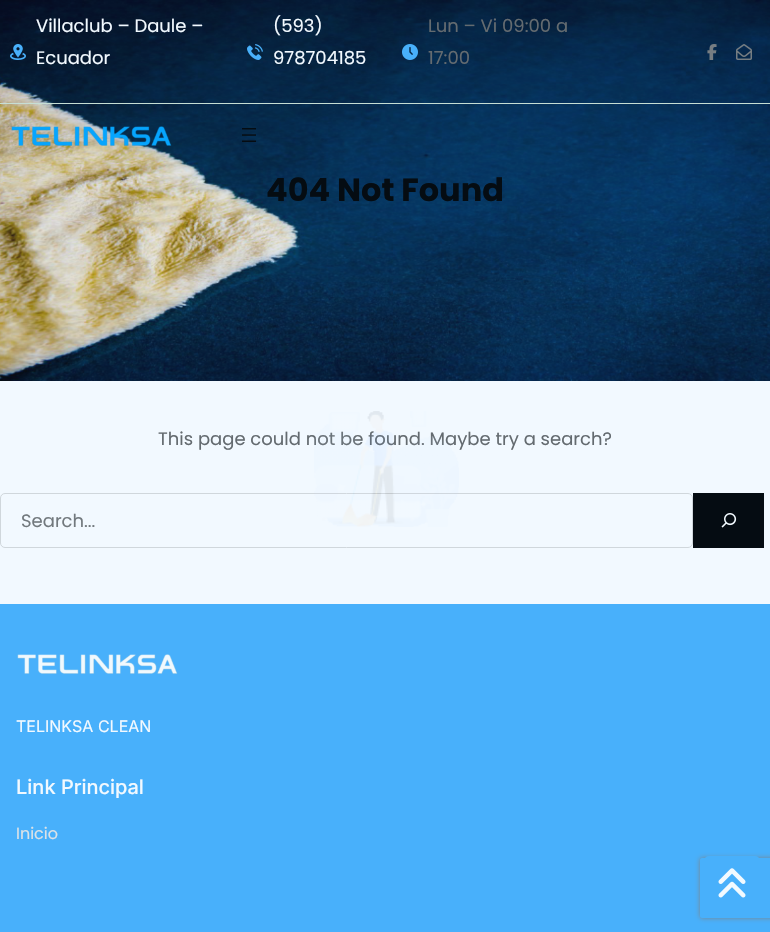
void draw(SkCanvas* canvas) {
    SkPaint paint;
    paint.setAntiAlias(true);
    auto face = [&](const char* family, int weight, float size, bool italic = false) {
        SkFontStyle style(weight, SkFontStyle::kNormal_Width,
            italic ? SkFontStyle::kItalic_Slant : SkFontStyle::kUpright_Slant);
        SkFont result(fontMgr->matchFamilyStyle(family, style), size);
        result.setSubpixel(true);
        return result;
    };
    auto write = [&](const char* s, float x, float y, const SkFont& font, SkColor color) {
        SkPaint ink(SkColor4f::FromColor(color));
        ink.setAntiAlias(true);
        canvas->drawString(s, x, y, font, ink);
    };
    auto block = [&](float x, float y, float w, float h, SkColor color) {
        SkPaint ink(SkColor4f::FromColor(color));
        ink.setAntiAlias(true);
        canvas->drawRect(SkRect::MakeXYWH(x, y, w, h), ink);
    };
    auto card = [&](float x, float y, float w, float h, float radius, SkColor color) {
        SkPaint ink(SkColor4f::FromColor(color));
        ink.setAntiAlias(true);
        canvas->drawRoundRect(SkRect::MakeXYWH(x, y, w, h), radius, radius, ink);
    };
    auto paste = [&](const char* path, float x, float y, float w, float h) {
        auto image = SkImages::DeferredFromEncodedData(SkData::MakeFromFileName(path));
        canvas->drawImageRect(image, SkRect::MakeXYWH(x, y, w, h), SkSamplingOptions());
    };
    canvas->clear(SkColorSetRGB(242, 249, 255));
    paste("pic8.png", 0, 0, 770, 381);
    block(0, 103, 770, 1, SkColorSetRGB(198, 222, 212));
    paste("pic1.png", 10, 44, 16, 16);
    auto kFont1 = face("Poppins", 400, 18);
    write("Villaclub – Daule –", 36, 32, kFont1, SkColorSetRGB(242, 249, 255));
    write("Ecuador", 36, 64, kFont1, SkColorSetRGB(242, 249, 255));
    paste("pic2.png", 247, 44, 16, 16);
    write("(593)", 273, 32, kFont1, SkColorSetRGB(242, 249, 255));
    write("978704185", 273, 64, kFont1, SkColorSetRGB(242, 249, 255));
    paste("pic3.png", 402, 44, 16, 16);
    write("Lun – Vi 09:00 a", 428, 32, kFont1, SkColorSetRGB(100, 107, 112));
    write("17:00", 428, 64, kFont1, SkColorSetRGB(100, 107, 112));
    paste("pic4.png", 707, 44, 10, 16);
    paste("pic5.png", 736, 44, 16, 16);
    paste("pic6.png", 11, 126, 161, 20);
    paste("pic7.png", 242, 128, 14, 14);
    auto kFont2 = face("Poppins", 700, 32);
    write("404 Not Found", 266, 201, kFont2, SkColorSetRGB(5, 12, 18));
    write("This page could not be found. Maybe try a search?", 158, 445, kFont1, SkColorSetRGB(100, 107, 112));
    paint.setStyle(SkPaint::kStroke_Style);
    paint.setStrokeWidth(1);
    paint.setColor(SkColorSetRGB(208, 215, 220));
    canvas->drawRoundRect(SkRect::MakeXYWH(0.5f, 493.5f, 692, 54), 4.5f, 4.5f, paint);
    write("Search...", 21, 527, kFont1, SkColorSetRGB(114, 121, 126));
    block(693, 493, 71, 55, SkColorSetRGB(5, 12, 18));
    paste("pic9.png", 721, 513, 16, 15);
    block(0, 604, 770, 328, SkColorSetRGB(72, 176, 251));
    paste("pic10.png", 17, 654, 161, 20);
    auto kFont3 = face("Inter", 400, 16);
    write("TELINKSA CLEAN", 16, 732, kFont3, SkColorSetRGB(242, 249, 255));
    auto kFont4 = face("Inter", 500, 20);
    write("Link Principal", 16, 794, kFont4, SkColorSetRGB(242, 249, 255));
    auto kFont5 = face("Poppins", 400, 16);
    write("Inicio", 16, 839, kFont5, SkColorSetRGB(219, 226, 231));
    canvas->save();
    canvas->clipPath(SkPathBuilder(SkPathFillType::kEvenOdd).moveTo(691, 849).lineTo(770, 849).lineTo(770, 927).lineTo(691, 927).close().moveTo(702, 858).lineTo(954, 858).cubicTo(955, 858, 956, 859, 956, 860).lineTo(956, 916).cubicTo(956, 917, 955, 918, 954, 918).lineTo(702, 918).cubicTo(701, 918, 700, 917, 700, 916).lineTo(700, 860).cubicTo(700, 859, 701, 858, 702, 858).close().detach(), true);
    paint.setStyle(SkPaint::kFill_Style);
    paint.setColor(SkColorSetRGB(124, 131, 137));
    paint.setMaskFilter(SkMaskFilter::MakeBlur(kNormal_SkBlurStyle, 2.5f));
    canvas->drawRoundRect(SkRect::MakeXYWH(700, 858, 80, 60), 2, 2, paint);
    paint.setMaskFilter(nullptr);
    canvas->restore();
    card(704, 856, 56, 56, 5, SkColorSetRGB(72, 176, 251));
    paste("pic11.png", 718, 868, 28, 30);
    paste("pic12.png", 314, 411, 145, 116);
}
